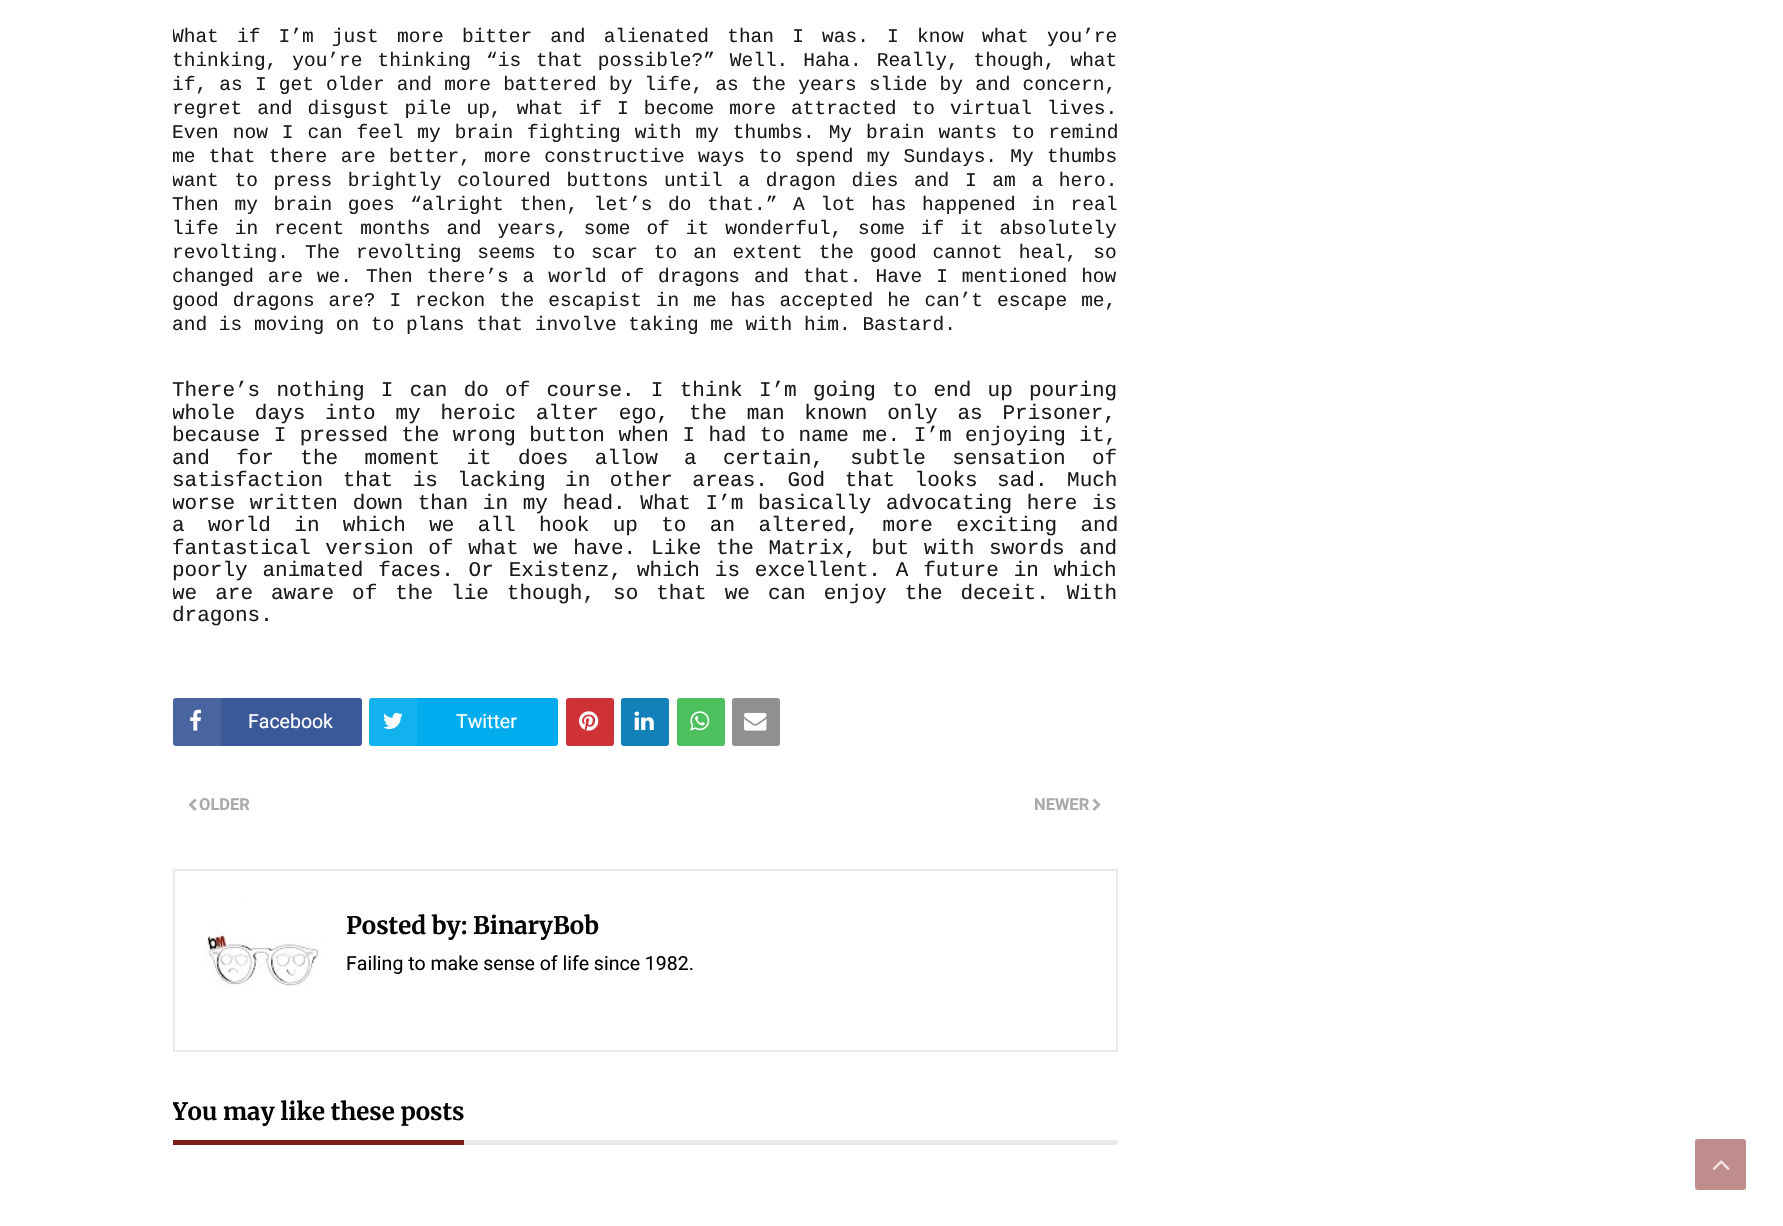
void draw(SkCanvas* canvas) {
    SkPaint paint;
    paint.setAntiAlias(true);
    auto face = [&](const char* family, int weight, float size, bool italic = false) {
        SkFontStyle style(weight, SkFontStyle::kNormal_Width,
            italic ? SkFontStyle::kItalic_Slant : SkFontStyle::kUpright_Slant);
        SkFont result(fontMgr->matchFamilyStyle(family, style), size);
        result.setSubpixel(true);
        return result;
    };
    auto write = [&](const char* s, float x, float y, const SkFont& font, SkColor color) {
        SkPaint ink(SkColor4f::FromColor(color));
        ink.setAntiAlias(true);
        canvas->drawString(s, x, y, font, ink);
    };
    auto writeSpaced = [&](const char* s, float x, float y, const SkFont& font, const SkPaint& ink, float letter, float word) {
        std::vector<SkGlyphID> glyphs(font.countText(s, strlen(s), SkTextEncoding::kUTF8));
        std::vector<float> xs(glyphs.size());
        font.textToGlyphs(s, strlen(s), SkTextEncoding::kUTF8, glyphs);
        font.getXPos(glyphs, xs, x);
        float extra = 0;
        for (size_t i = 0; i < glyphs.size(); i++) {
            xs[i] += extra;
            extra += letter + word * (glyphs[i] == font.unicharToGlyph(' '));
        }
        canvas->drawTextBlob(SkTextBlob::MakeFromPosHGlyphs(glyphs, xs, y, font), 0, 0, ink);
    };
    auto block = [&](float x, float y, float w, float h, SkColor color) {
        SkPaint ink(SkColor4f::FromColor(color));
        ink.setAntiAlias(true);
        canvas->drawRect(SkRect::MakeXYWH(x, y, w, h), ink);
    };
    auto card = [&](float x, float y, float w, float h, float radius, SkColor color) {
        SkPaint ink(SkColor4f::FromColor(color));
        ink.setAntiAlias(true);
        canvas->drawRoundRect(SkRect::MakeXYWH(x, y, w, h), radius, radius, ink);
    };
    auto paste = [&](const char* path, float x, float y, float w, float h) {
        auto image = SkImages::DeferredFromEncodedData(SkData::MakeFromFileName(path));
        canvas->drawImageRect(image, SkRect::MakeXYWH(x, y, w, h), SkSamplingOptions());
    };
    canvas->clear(SK_ColorWHITE);
    canvas->save();
    canvas->clipRect(SkRect::MakeXYWH(173, 0, 945, 1220));
    auto kFont1 = face("Liberation Mono", 400, 19.5f);
    paint.setColor(SkColorSetRGB(26, 26, 26));
    writeSpaced("What if I’m just more bitter and alienated than I was. I know what you’re", 172, 42, kFont1, paint, 0, 6.5f);
    canvas->restore();
    writeSpaced("thinking, you’re thinking “is that possible?” Well. Haha. Really, though, what", 172, 66, kFont1, paint, 0, 3.25f);
    writeSpaced("if, as I get older and more battered by life, as the years slide by and concern,", 172, 90, kFont1, paint, 0, 0.5f);
    writeSpaced("regret and disgust pile up, what if I become more attracted to virtual lives.", 172, 114, kFont1, paint, 0, 3.4f);
    writeSpaced("Even now I can feel my brain fighting with my thumbs. My brain wants to remind", 172, 138, kFont1, paint, 0, 2.25f);
    canvas->save();
    canvas->clipRect(SkRect::MakeXYWH(173, 0, 945, 1220));
    writeSpaced("me that there are better, more constructive ways to spend my Sundays. My thumbs", 172, 162, kFont1, paint, 0, 1.6f);
    writeSpaced("want to press brightly coloured buttons until a dragon dies and I am a hero.", 172, 186, kFont1, paint, 0, 4);
    canvas->restore();
    writeSpaced("Then my brain goes “alright then, let’s do that.” A lot has happened in real", 172, 210, kFont1, paint, 0, 4);
    writeSpaced("life in recent months and years, some of it wonderful, some if it absolutely", 172, 234, kFont1, paint, 0, 4.25f);
    writeSpaced("revolting. The revolting seems to scar to an extent the good cannot heal, so", 172, 258, kFont1, paint, 0, 4.25f);
    writeSpaced("changed are we. Then there’s a world of dragons and that. Have I mentioned how", 172, 282, kFont1, paint, 0, 2.25f);
    writeSpaced("good dragons are? I reckon the escapist in me has accepted he can’t escape me,", 172, 306, kFont1, paint, 0, 2.25f);
    write("and is moving on to plans that involve taking me with him. Bastard.", 172, 330, kFont1, SkColorSetRGB(26, 26, 26));
    auto kFont2 = face("Liberation Mono", 400, 21);
    writeSpaced("There’s nothing I can do of course. I think I’m going to end up pouring", 172, 396, kFont2, paint, 0, 3.6f);
    canvas->save();
    canvas->clipRect(SkRect::MakeXYWH(173, 0, 945, 1220));
    writeSpaced("whole days into my heroic alter ego, the man known only as Prisoner,", 172, 419, kFont2, paint, 0, 7.25f);
    canvas->restore();
    writeSpaced("because I pressed the wrong button when I had to name me. I’m enjoying it,", 172, 441, kFont2, paint, 0, 0.9f);
    writeSpaced("and for the moment it does allow a certain, subtle sensation of", 172, 464, kFont2, paint, 0, 13.75f);
    writeSpaced("satisfaction that is lacking in other areas. God that looks sad. Much", 172, 486, kFont2, paint, 0, 6.9f);
    canvas->save();
    canvas->clipRect(SkRect::MakeXYWH(173, 0, 945, 1220));
    writeSpaced("worse written down than in my head. What I’m basically advocating here is", 172, 509, kFont2, paint, 0, 2.1f);
    canvas->restore();
    writeSpaced("a world in which we all hook up to an altered, more exciting and", 172, 531, kFont2, paint, 0, 10.75f);
    writeSpaced("fantastical version of what we have. Like the Matrix, but with swords and", 172, 554, kFont2, paint, 0, 2.1f);
    writeSpaced("poorly animated faces. Or Existenz, which is excellent. A future in which", 172, 576, kFont2, paint, 0, 2.25f);
    canvas->save();
    canvas->clipRect(SkRect::MakeXYWH(173, 0, 945, 1220));
    writeSpaced("we are aware of the lie though, so that we can enjoy the deceit. With", 172, 599, kFont2, paint, 0, 5.4f);
    canvas->restore();
    write("dragons.", 172, 621, kFont2, SkColorSetRGB(26, 26, 26));
    card(173, 698, 189, 48, 3, SkColorSetRGB(59, 89, 153));
    block(173, 698, 48, 48, SkColorSetARGB(18, 255, 255, 255));
    paste("pic1.png", 190, 709, 12, 22);
    auto kFont3 = face("Roboto", 400, 19.5f);
    write("Facebook", 248, 728, kFont3, SK_ColorWHITE);
    card(369, 698, 189, 48, 3, SkColorSetRGB(0, 172, 238));
    block(369, 698, 48, 48, SkColorSetARGB(18, 255, 255, 255));
    paste("pic2.png", 383, 712, 20, 17);
    write("Twitter", 456, 728, kFont3, SK_ColorWHITE);
    card(566, 698, 48, 48, 3, SkColorSetRGB(206, 49, 54));
    paste("pic3.png", 579, 711, 20, 20);
    card(621, 698, 48, 48, 3, SkColorSetRGB(18, 129, 186));
    paste("pic4.png", 634, 711, 20, 19);
    card(677, 698, 48, 48, 3, SkColorSetRGB(76, 192, 92));
    paste("pic5.png", 690, 711, 20, 20);
    card(732, 698, 48, 48, 3, SkColorSetRGB(144, 144, 144));
    paste("pic6.png", 744, 712, 23, 19);
    paste("pic7.png", 188, 798, 9, 13);
    auto kFont4 = face("Roboto", 700, 16.5f);
    write("OLDER", 199, 810, kFont4, SkColorSetRGB(170, 170, 170));
    write("NEWER", 1034, 810, kFont4, SkColorSetRGB(170, 170, 170));
    paste("pic8.png", 1092, 798, 9, 13);
    paint.setStyle(SkPaint::kStroke_Style);
    paint.setStrokeWidth(2);
    paint.setColor(SkColorSetRGB(234, 234, 234));
    canvas->drawRect(SkRect::MakeXYWH(174, 870, 943, 181), paint);
    paint.setStyle(SkPaint::kFill_Style);
    paint.setColor(SkColorSetRGB(249, 249, 249));
    canvas->drawCircle(264, 960, 60, paint);
    paste("pic9.png", 204, 900, 120, 120);
    canvas->save();
    canvas->clipRect(SkRect::MakeXYWH(347, 911, 252, 30));
    auto kFont5 = face("Merriweather", 700, 24);
    write("Posted by:", 346, 934, kFont5, SkColorSetRGB(2, 2, 2));
    canvas->restore();
    write("BinaryBob", 473, 934, kFont5, SkColorSetRGB(2, 2, 2));
    write("Failing to make sense of life since 1982.", 346, 970, kFont3, SkColorSetRGB(2, 2, 2));
    block(464, 1140, 654, 5, SkColorSetRGB(234, 234, 234));
    canvas->save();
    canvas->clipRect(SkRect::MakeXYWH(173, 1097, 945, 78));
    write("You may like these posts", 172, 1120, kFont5, SkColorSetRGB(2, 2, 2));
    canvas->restore();
    block(173, 1140, 291, 5, SkColorSetRGB(127, 29, 24));
    card(1695, 1139, 51, 51, 3, SkColorSetRGB(191, 142, 140));
    paste("pic10.png", 1712, 1160, 18, 10);
}
